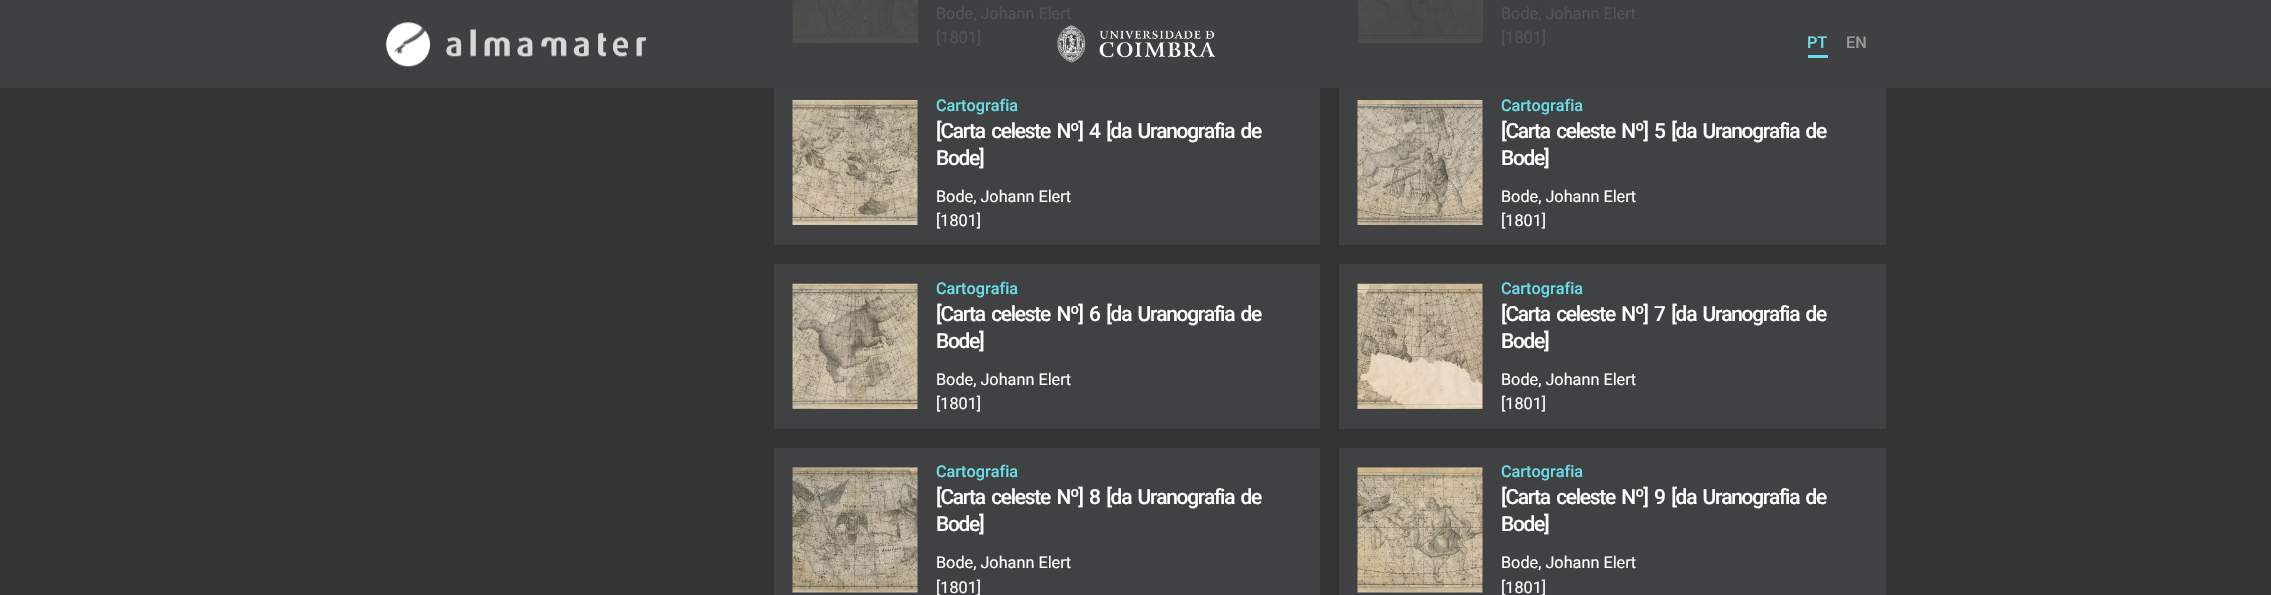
void draw(SkCanvas* canvas) {
    SkPaint paint;
    paint.setAntiAlias(true);
    auto face = [&](const char* family, int weight, float size, bool italic = false) {
        SkFontStyle style(weight, SkFontStyle::kNormal_Width,
            italic ? SkFontStyle::kItalic_Slant : SkFontStyle::kUpright_Slant);
        SkFont result(fontMgr->matchFamilyStyle(family, style), size);
        result.setSubpixel(true);
        return result;
    };
    auto write = [&](const char* s, float x, float y, const SkFont& font, SkColor color) {
        SkPaint ink(SkColor4f::FromColor(color));
        ink.setAntiAlias(true);
        canvas->drawString(s, x, y, font, ink);
    };
    auto writeSpaced = [&](const char* s, float x, float y, const SkFont& font, const SkPaint& ink, float letter, float word) {
        std::vector<SkGlyphID> glyphs(font.countText(s, strlen(s), SkTextEncoding::kUTF8));
        std::vector<float> xs(glyphs.size());
        font.textToGlyphs(s, strlen(s), SkTextEncoding::kUTF8, glyphs);
        font.getXPos(glyphs, xs, x);
        float extra = 0;
        for (size_t i = 0; i < glyphs.size(); i++) {
            xs[i] += extra;
            extra += letter + word * (glyphs[i] == font.unicharToGlyph(' '));
        }
        canvas->drawTextBlob(SkTextBlob::MakeFromPosHGlyphs(glyphs, xs, y, font), 0, 0, ink);
    };
    auto block = [&](float x, float y, float w, float h, SkColor color) {
        SkPaint ink(SkColor4f::FromColor(color));
        ink.setAntiAlias(true);
        canvas->drawRect(SkRect::MakeXYWH(x, y, w, h), ink);
    };
    auto paste = [&](const char* path, float x, float y, float w, float h) {
        auto image = SkImages::DeferredFromEncodedData(SkData::MakeFromFileName(path));
        canvas->drawImageRect(image, SkRect::MakeXYWH(x, y, w, h), SkSamplingOptions());
    };
    canvas->clear(SkColorSetRGB(51, 51, 51));
    block(0, 0, 2271, 88, SkColorSetRGB(63, 64, 65));
    paste("pic1.png", 792, 0, 126, 43);
    auto kFont1 = face("Roboto", 400, 16.25f);
    write("Bode, Johann Elert", 936, 19, kFont1, SkColorSetRGB(83, 84, 85));
    write("[1801]", 936, 43, kFont1, SkColorSetRGB(83, 84, 85));
    paste("pic2.png", 1358, 0, 125, 43);
    write("Bode, Johann Elert", 1501, 19, kFont1, SkColorSetRGB(83, 84, 85));
    write("[1801]", 1501, 43, kFont1, SkColorSetRGB(83, 84, 85));
    block(774, 88, 546, 157, SkColorSetRGB(64, 65, 66));
    paste("pic3.png", 792, 100, 126, 125);
    auto kFont2 = face("Roboto", 500, 16.25f);
    write("Cartografia", 936, 111, kFont2, SkColorSetRGB(107, 221, 232));
    auto kFont3 = face("Roboto", 500, 20.9f);
    paint.setColor(SK_ColorWHITE);
    writeSpaced("[Carta celeste Nº] 4 [da Uranografia de", 936, 138, kFont3, paint, -1.25f, 2.5f);
    writeSpaced("Bode]", 936, 165, kFont3, paint, -1.25f, 0);
    write("Bode, Johann Elert", 936, 202, kFont1, SK_ColorWHITE);
    write("[1801]", 936, 226, kFont1, SK_ColorWHITE);
    block(1339, 88, 547, 157, SkColorSetRGB(64, 65, 66));
    paste("pic4.png", 1357, 100, 126, 125);
    write("Cartografia", 1501, 111, kFont2, SkColorSetRGB(107, 221, 232));
    writeSpaced("[Carta celeste Nº] 5 [da Uranografia de", 1501, 138, kFont3, paint, -1.25f, 2.5f);
    writeSpaced("Bode]", 1501, 165, kFont3, paint, -1.25f, 0);
    write("Bode, Johann Elert", 1501, 202, kFont1, SK_ColorWHITE);
    write("[1801]", 1501, 226, kFont1, SK_ColorWHITE);
    block(774, 264, 546, 165, SkColorSetRGB(64, 65, 66));
    paste("pic5.png", 792, 283, 126, 126);
    write("Cartografia", 936, 294, kFont2, SkColorSetRGB(107, 221, 232));
    writeSpaced("[Carta celeste Nº] 6 [da Uranografia de", 936, 321, kFont3, paint, -1.25f, 2.5f);
    writeSpaced("Bode]", 936, 348, kFont3, paint, -1.25f, 0);
    write("Bode, Johann Elert", 936, 385, kFont1, SK_ColorWHITE);
    write("[1801]", 936, 409, kFont1, SK_ColorWHITE);
    block(1339, 264, 547, 165, SkColorSetRGB(64, 65, 66));
    paste("pic6.png", 1357, 283, 126, 126);
    write("Cartografia", 1501, 294, kFont2, SkColorSetRGB(107, 221, 232));
    writeSpaced("[Carta celeste Nº] 7 [da Uranografia de", 1501, 321, kFont3, paint, -1.25f, 2.5f);
    writeSpaced("Bode]", 1501, 348, kFont3, paint, -1.25f, 0);
    write("Bode, Johann Elert", 1501, 385, kFont1, SK_ColorWHITE);
    write("[1801]", 1501, 409, kFont1, SK_ColorWHITE);
    block(774, 448, 546, 147, SkColorSetRGB(64, 65, 66));
    paste("pic7.png", 792, 467, 126, 126);
    write("Cartografia", 936, 477, kFont2, SkColorSetRGB(107, 221, 232));
    writeSpaced("[Carta celeste Nº] 8 [da Uranografia de", 936, 504, kFont3, paint, -1.25f, 2.5f);
    writeSpaced("Bode]", 936, 531, kFont3, paint, -1.25f, 0);
    write("Bode, Johann Elert", 936, 568, kFont1, SK_ColorWHITE);
    write("[1801]", 936, 593, kFont1, SK_ColorWHITE);
    block(1339, 448, 547, 147, SkColorSetRGB(64, 65, 66));
    paste("pic8.png", 1357, 467, 126, 126);
    write("Cartografia", 1501, 477, kFont2, SkColorSetRGB(107, 221, 232));
    writeSpaced("[Carta celeste Nº] 9 [da Uranografia de", 1501, 504, kFont3, paint, -1.25f, 2.5f);
    writeSpaced("Bode]", 1501, 531, kFont3, paint, -1.25f, 0);
    write("Bode, Johann Elert", 1501, 568, kFont1, SK_ColorWHITE);
    write("[1801]", 1501, 593, kFont1, SK_ColorWHITE);
    paste("pic9.png", 386, 22, 44, 45);
    paste("pic10.png", 446, 29, 201, 29);
    paste("pic11.png", 1057, 25, 158, 38);
    block(1808, 55, 20, 3, SkColorSetRGB(107, 221, 232));
    write("PT", 1807, 48, kFont2, SkColorSetRGB(107, 221, 232));
    write("EN", 1846, 48, kFont2, SkColorSetRGB(153, 153, 153));
}
